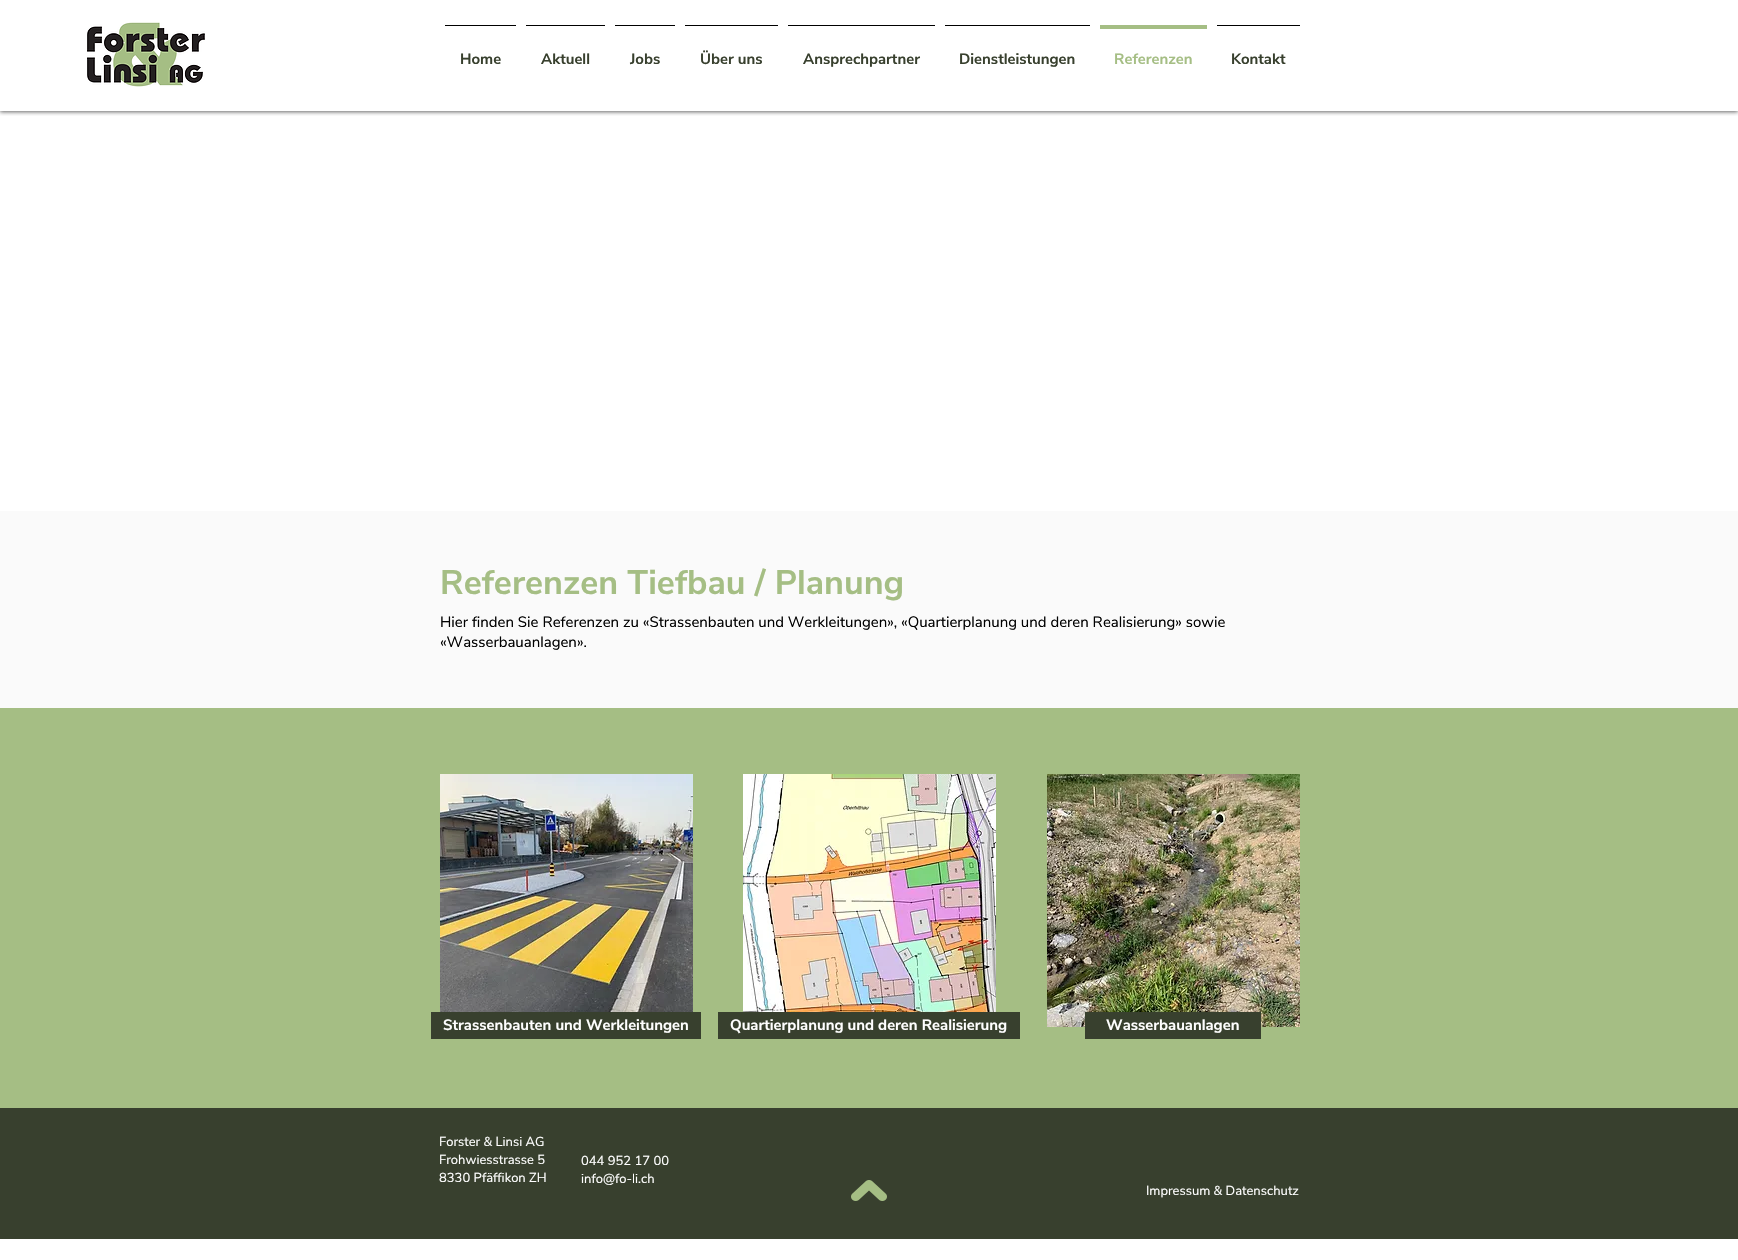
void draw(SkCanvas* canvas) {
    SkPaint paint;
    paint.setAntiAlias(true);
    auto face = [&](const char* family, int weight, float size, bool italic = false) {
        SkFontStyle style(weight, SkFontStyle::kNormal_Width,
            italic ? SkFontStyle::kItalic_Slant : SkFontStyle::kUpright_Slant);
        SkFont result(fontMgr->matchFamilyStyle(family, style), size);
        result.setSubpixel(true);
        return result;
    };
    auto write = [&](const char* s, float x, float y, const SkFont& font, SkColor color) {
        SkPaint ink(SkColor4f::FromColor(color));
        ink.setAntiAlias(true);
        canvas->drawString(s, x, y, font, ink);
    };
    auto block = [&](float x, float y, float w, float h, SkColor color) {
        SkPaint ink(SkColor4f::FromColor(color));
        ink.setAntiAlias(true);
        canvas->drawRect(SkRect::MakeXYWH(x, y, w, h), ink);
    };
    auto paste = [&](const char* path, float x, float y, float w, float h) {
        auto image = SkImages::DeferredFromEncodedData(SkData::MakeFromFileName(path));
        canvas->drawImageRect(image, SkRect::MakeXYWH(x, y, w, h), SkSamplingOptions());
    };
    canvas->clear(SK_ColorWHITE);
    canvas->save();
    canvas->clipRect(SkRect::MakeXYWH(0, 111, 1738, 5));
    paint.setColor(SkColorSetARGB(153, 0, 0, 0));
    paint.setMaskFilter(SkMaskFilter::MakeBlur(kNormal_SkBlurStyle, 2));
    canvas->drawRect(SkRect::MakeXYWH(0, 1, 1738, 111), paint);
    paint.setMaskFilter(nullptr);
    canvas->restore();
    paste("pic1.png", 87, 22, 118, 65);
    block(445, 25, 71, 1, SK_ColorBLACK);
    auto kFont1 = face("Nunito Sans", 700, 15);
    write("Home", 460, 64, kFont1, SkColorSetRGB(56, 64, 46));
    block(526, 25, 79, 1, SK_ColorBLACK);
    write("Aktuell", 541, 64, kFont1, SkColorSetRGB(56, 64, 46));
    block(615, 25, 60, 1, SK_ColorBLACK);
    write("Jobs", 630, 64, kFont1, SkColorSetRGB(56, 64, 46));
    block(685, 25, 93, 1, SK_ColorBLACK);
    write("Über uns", 700, 64, kFont1, SkColorSetRGB(56, 64, 46));
    block(788, 25, 147, 1, SK_ColorBLACK);
    write("Ansprechpartner", 803, 64, kFont1, SkColorSetRGB(56, 64, 46));
    block(945, 25, 145, 1, SK_ColorBLACK);
    write("Dienstleistungen", 959, 64, kFont1, SkColorSetRGB(56, 64, 46));
    block(1100, 25, 107, 4, SkColorSetRGB(165, 190, 132));
    write("Referenzen", 1114, 64, kFont1, SkColorSetRGB(165, 190, 132));
    block(1217, 25, 83, 1, SK_ColorBLACK);
    write("Kontakt", 1231, 64, kFont1, SkColorSetRGB(56, 64, 46));
    block(0, 511, 1738, 197, SkColorSetRGB(250, 250, 250));
    auto kFont2 = face("Nunito Sans", 700, 34);
    write("Referenzen Tiefbau / Planung", 440, 594, kFont2, SkColorSetRGB(165, 190, 132));
    auto kFont3 = face("Nunito Sans", 400, 15);
    write("Hier finden Sie Referenzen zu «Strassenbauten und Werkleitungen», «Quartierplanung und deren Realisierung» sowie", 440, 627, kFont3, SK_ColorBLACK);
    write("«Wasserbauanlagen».", 440, 647, kFont3, SK_ColorBLACK);
    block(0, 708, 1738, 400, SkColorSetRGB(165, 190, 132));
    paste("pic2.png", 440, 774, 253, 238);
    paste("pic3.png", 743, 774, 253, 238);
    paste("pic4.png", 1047, 774, 253, 253);
    block(431, 1012, 270, 27, SkColorSetRGB(56, 64, 46));
    write("Strassenbauten und Werkleitungen", 443, 1030, kFont1, SK_ColorWHITE);
    block(718, 1012, 302, 27, SkColorSetRGB(56, 64, 46));
    write("Quartierplanung und deren Realisierung", 730, 1030, kFont1, SK_ColorWHITE);
    block(1085, 1012, 176, 27, SkColorSetRGB(56, 64, 46));
    write("Wasserbauanlagen", 1106, 1030, kFont1, SK_ColorWHITE);
    block(0, 1108, 1738, 131, SkColorSetRGB(56, 64, 46));
    auto kFont4 = face("Nunito Sans", 400, 13);
    write("Forster & Linsi AG", 439, 1146, kFont4, SK_ColorWHITE);
    write("Frohwiesstrasse 5", 439, 1164, kFont4, SK_ColorWHITE);
    write("8330 Pfäffikon ZH", 439, 1182, kFont4, SK_ColorWHITE);
    write("044 952 17 00", 581, 1165, kFont4, SK_ColorWHITE);
    write("info@fo-li.ch", 581, 1183, kFont4, SK_ColorWHITE);
    paste("pic5.png", 851, 1180, 36, 21);
    write("Impressum & Datenschutz", 1146, 1195, kFont4, SK_ColorWHITE);
}
